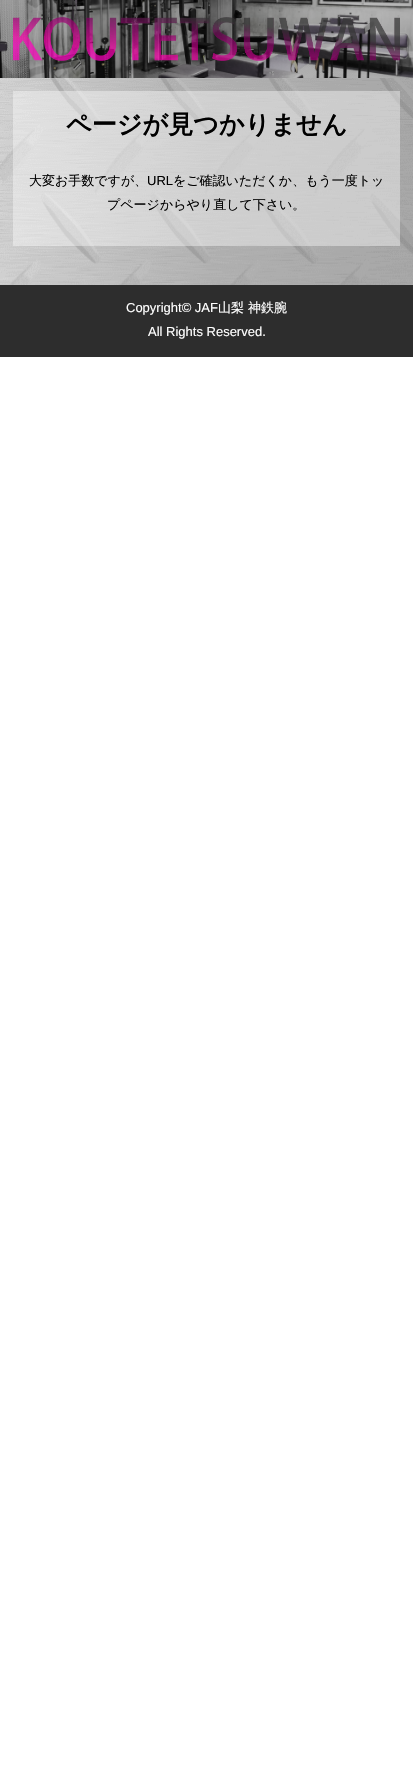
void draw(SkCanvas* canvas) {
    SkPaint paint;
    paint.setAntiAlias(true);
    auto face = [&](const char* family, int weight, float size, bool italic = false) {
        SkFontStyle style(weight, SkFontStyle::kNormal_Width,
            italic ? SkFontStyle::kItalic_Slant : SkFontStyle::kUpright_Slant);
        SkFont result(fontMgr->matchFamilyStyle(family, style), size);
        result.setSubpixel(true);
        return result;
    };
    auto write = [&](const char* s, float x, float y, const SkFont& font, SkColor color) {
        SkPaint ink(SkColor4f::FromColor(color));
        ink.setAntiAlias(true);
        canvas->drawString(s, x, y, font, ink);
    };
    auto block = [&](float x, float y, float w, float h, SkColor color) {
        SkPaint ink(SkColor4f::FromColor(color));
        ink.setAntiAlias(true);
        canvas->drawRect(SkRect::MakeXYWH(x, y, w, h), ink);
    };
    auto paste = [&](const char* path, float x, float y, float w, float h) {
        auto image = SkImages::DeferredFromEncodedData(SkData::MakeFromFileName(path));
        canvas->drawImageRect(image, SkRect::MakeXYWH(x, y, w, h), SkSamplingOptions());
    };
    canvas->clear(SK_ColorWHITE);
    paste("pic1.png", 0, 0, 413, 78);
    paste("pic2.png", 13, 17, 387, 44);
    paste("pic3.png", 0, 78, 413, 207);
    block(13, 91, 387, 155, SkColorSetARGB(102, 255, 255, 255));
    auto kFont1 = face("WenQuanYi Zen Hei", 700, 25.1f);
    write("ページが見つかりません", 66, 133, kFont1, SK_ColorBLACK);
    auto kFont2 = face("WenQuanYi Zen Hei", 500, 13);
    write("大変お手数ですが、", 29, 185, kFont2, SK_ColorBLACK);
    auto kFont3 = face("Liberation Sans", 400, 13);
    write("URL", 147, 185, kFont3, SK_ColorBLACK);
    write("をご確認いただくか、もう一度トッ", 173, 185, kFont2, SK_ColorBLACK);
    write("プページからやり直して下さい。", 107, 209, kFont2, SK_ColorBLACK);
    block(0, 285, 413, 72, SkColorSetRGB(45, 45, 45));
    write("Copyright© JAF", 126, 312, kFont3, SK_ColorWHITE);
    write("山梨 神鉄腕", 218, 312, kFont2, SK_ColorWHITE);
    write("All Rights Reserved.", 148, 336, kFont3, SK_ColorWHITE);
}
